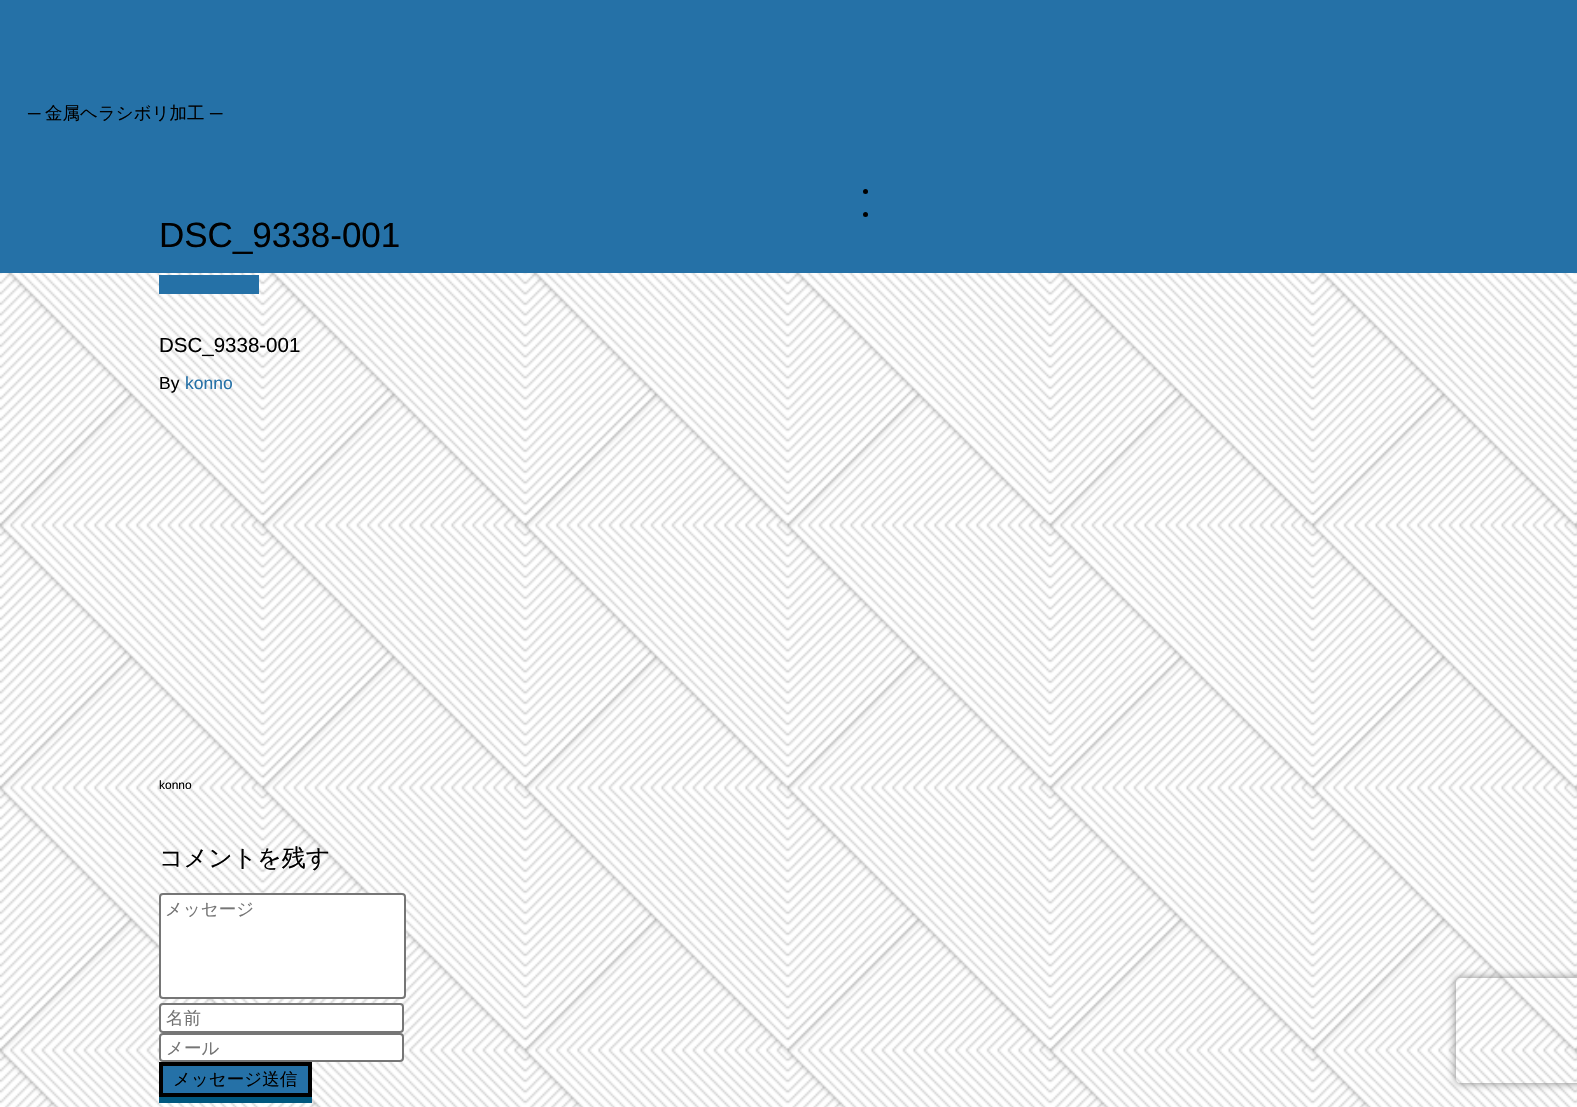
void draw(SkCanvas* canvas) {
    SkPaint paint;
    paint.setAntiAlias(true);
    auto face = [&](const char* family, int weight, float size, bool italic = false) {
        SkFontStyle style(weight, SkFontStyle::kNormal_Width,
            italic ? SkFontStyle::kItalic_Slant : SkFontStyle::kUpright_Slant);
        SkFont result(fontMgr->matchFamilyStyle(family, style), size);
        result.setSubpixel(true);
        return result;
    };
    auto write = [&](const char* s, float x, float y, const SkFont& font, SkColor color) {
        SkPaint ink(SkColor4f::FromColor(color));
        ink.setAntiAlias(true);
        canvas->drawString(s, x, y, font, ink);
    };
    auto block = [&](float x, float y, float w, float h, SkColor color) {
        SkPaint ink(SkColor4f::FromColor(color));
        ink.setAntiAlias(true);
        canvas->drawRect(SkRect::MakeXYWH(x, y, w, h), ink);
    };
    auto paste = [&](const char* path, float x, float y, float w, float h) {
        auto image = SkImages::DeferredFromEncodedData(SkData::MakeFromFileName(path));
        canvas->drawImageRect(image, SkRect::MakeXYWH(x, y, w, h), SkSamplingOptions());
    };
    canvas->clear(SK_ColorWHITE);
    paste("pic1.png", 0, 273, 1577, 834);
    block(0, 0, 1577, 273, SkColorSetRGB(37, 113, 167));
    auto kFont1 = face("Liberation Sans", 400, 17.5f);
    write("─", 28, 119, kFont1, SK_ColorBLACK);
    auto kFont2 = face("WenQuanYi Zen Hei", 500, 17.5f);
    write("金属ヘラシボリ加工", 45, 119, kFont2, SK_ColorBLACK);
    write("─", 210, 119, kFont1, SK_ColorBLACK);
    paint.setColor(SK_ColorBLACK);
    canvas->drawCircle(865.5f, 191.5f, 2.5f, paint);
    canvas->drawCircle(865.5f, 214.5f, 2.5f, paint);
    auto kFont3 = face("Liberation Sans", 400, 35);
    write("DSC_9338-001", 159, 247, kFont3, SK_ColorBLACK);
    block(159, 275, 100, 19, SkColorSetRGB(37, 113, 167));
    auto kFont4 = face("Liberation Sans", 400, 20.5f);
    write("DSC_9338-001", 159, 352, kFont4, SK_ColorBLACK);
    write("By", 159, 389, kFont1, SK_ColorBLACK);
    write("konno", 185, 389, kFont1, SkColorSetRGB(37, 113, 167));
    auto kFont5 = face("Liberation Sans", 400, 12);
    write("konno", 159, 789, kFont5, SK_ColorBLACK);
    auto kFont6 = face("WenQuanYi Zen Hei", 500, 24);
    write("コメントを残す", 159, 866, kFont6, SK_ColorBLACK);
    paint.setColor(SK_ColorWHITE);
    canvas->drawRoundRect(SkRect::MakeXYWH(160, 894, 245, 104), 3, 3, paint);
    paint.setStyle(SkPaint::kStroke_Style);
    paint.setStrokeWidth(2);
    paint.setColor(SkColorSetRGB(118, 118, 118));
    canvas->drawRoundRect(SkRect::MakeXYWH(160, 894, 245, 104), 3, 3, paint);
    write("メッセージ", 165, 915, kFont2, SkColorSetRGB(117, 117, 117));
    paint.setStyle(SkPaint::kFill_Style);
    paint.setColor(SK_ColorWHITE);
    canvas->drawRoundRect(SkRect::MakeXYWH(160, 1004, 243, 28), 3, 3, paint);
    paint.setStyle(SkPaint::kStroke_Style);
    paint.setColor(SkColorSetRGB(118, 118, 118));
    canvas->drawRoundRect(SkRect::MakeXYWH(160, 1004, 243, 28), 3, 3, paint);
    write("名前", 166, 1024, kFont2, SkColorSetRGB(117, 117, 117));
    paint.setStyle(SkPaint::kFill_Style);
    paint.setColor(SK_ColorWHITE);
    canvas->drawRoundRect(SkRect::MakeXYWH(160, 1034, 243, 27), 3, 3, paint);
    paint.setStyle(SkPaint::kStroke_Style);
    paint.setColor(SkColorSetRGB(118, 118, 118));
    canvas->drawRoundRect(SkRect::MakeXYWH(160, 1034, 243, 27), 3, 3, paint);
    write("メール", 166, 1054, kFont2, SkColorSetRGB(117, 117, 117));
    paint.setStyle(SkPaint::kFill_Style);
    paint.setColor(SkColorSetRGB(0, 88, 127));
    canvas->drawPath(SkPathBuilder().moveTo(159, 1068).lineTo(159, 1103).lineTo(312, 1103).lineTo(312, 1068).lineTo(312, 1097).lineTo(159, 1097).close().detach(), paint);
    paint.setColor(SkColorSetRGB(37, 113, 167));
    canvas->drawRect(SkRect::MakeXYWH(161, 1064, 149, 31), paint);
    paint.setStyle(SkPaint::kStroke_Style);
    paint.setStrokeWidth(4);
    paint.setColor(SK_ColorBLACK);
    canvas->drawRect(SkRect::MakeXYWH(161, 1064, 149, 31), paint);
    write("メッセージ送信", 173, 1085, kFont2, SK_ColorBLACK);
    canvas->save();
    canvas->clipPath(SkPathBuilder(SkPathFillType::kEvenOdd).moveTo(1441, 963).lineTo(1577, 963).lineTo(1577, 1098).lineTo(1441, 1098).close().moveTo(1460, 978).lineTo(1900, 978).cubicTo(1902, 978, 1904, 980, 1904, 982).lineTo(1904, 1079).cubicTo(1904, 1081, 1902, 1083, 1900, 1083).lineTo(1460, 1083).cubicTo(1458, 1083, 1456, 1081, 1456, 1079).lineTo(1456, 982).cubicTo(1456, 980, 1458, 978, 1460, 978).close().detach(), true);
    paint.setStyle(SkPaint::kFill_Style);
    paint.setColor(SkColorSetRGB(128, 128, 128));
    paint.setMaskFilter(SkMaskFilter::MakeBlur(kNormal_SkBlurStyle, 4.5f));
    canvas->drawRoundRect(SkRect::MakeXYWH(1456, 978, 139, 105), 4, 4, paint);
    paint.setMaskFilter(nullptr);
    canvas->restore();
}
